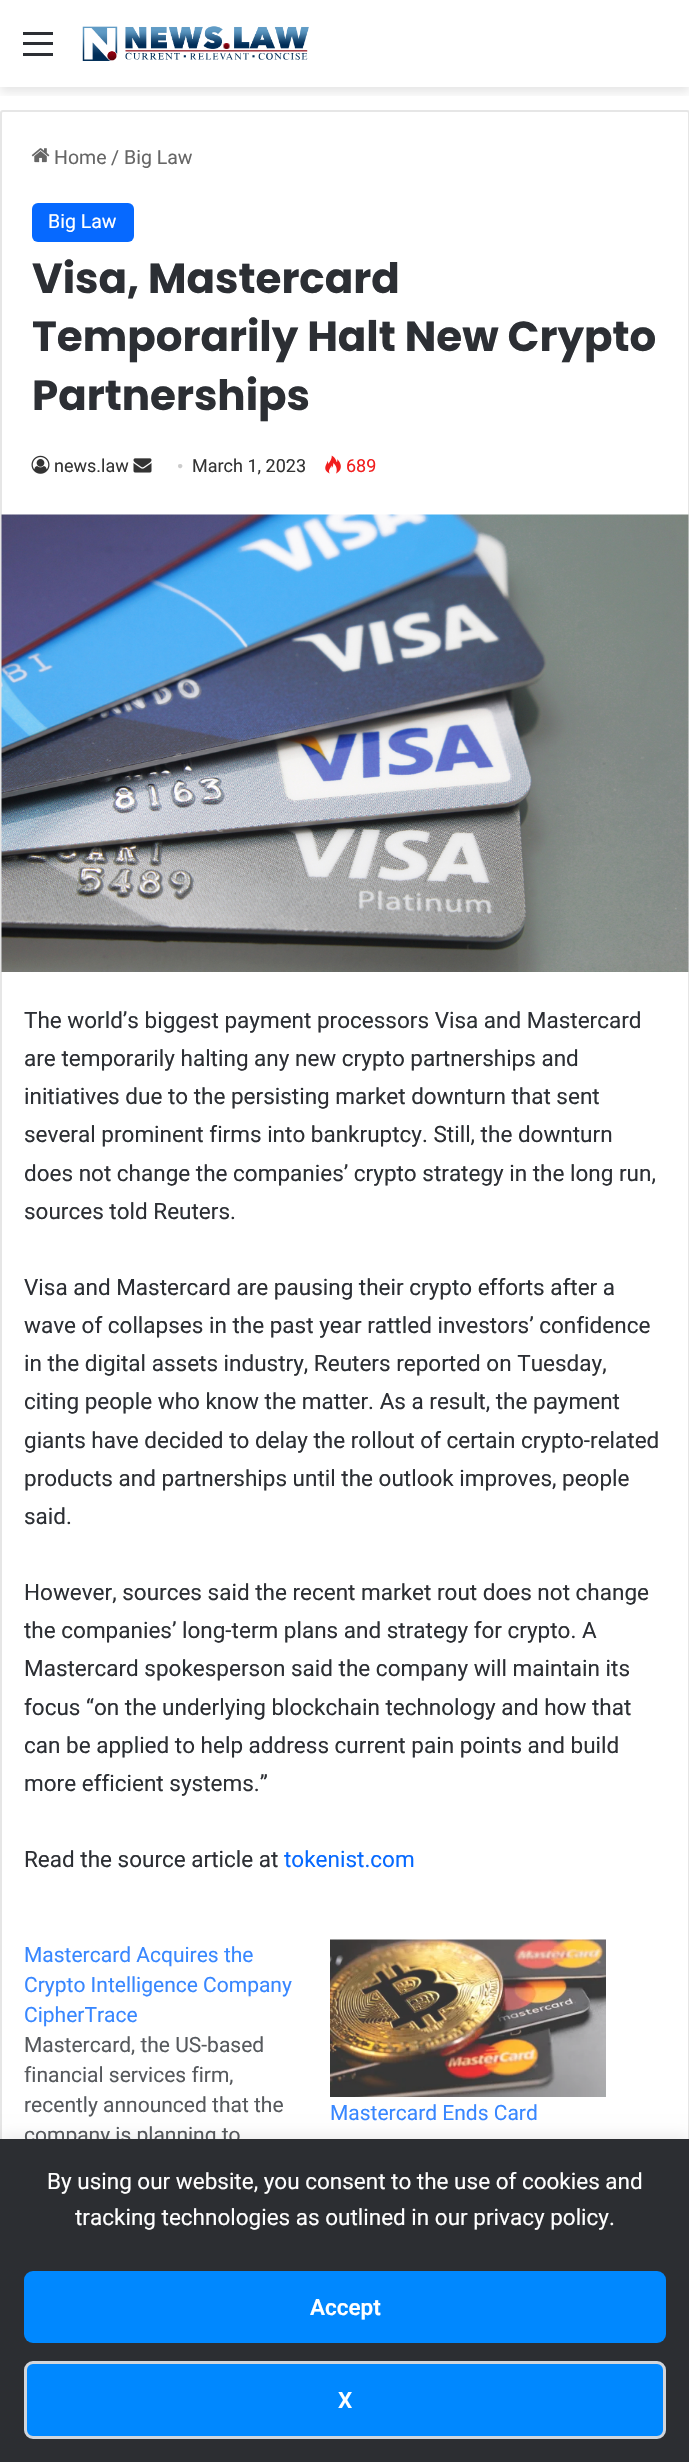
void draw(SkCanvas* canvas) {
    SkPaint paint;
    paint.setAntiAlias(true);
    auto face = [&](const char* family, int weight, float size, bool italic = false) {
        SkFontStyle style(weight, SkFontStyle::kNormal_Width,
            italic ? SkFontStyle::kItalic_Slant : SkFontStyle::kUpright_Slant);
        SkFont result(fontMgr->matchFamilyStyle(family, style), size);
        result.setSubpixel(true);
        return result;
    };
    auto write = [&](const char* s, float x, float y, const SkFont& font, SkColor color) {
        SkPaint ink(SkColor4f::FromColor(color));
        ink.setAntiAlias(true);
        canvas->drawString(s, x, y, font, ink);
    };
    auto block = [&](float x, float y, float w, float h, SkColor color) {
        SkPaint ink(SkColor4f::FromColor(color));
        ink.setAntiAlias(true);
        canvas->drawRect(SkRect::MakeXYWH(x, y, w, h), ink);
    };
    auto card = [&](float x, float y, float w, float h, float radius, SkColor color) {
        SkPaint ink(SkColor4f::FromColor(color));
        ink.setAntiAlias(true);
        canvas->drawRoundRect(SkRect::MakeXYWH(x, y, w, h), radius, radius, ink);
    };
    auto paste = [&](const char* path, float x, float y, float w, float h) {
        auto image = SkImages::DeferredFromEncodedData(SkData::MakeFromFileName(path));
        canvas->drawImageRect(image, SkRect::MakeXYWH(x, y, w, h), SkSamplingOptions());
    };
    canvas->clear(SK_ColorWHITE);
    canvas->save();
    canvas->clipRect(SkRect::MakeXYWH(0, 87, 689, 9));
    paint.setColor(SkColorSetARGB(26, 0, 0, 0));
    paint.setMaskFilter(SkMaskFilter::MakeBlur(kNormal_SkBlurStyle, 5));
    canvas->drawRect(SkRect::MakeXYWH(0, 5, 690, 87), paint);
    paint.setMaskFilter(nullptr);
    canvas->restore();
    block(23, 42, 30, 3, SkColorSetRGB(44, 47, 52));
    block(23, 32, 30, 3, SkColorSetRGB(44, 47, 52));
    block(23, 53, 30, 3, SkColorSetRGB(44, 47, 52));
    paste("pic1.png", 82, 26, 227, 35);
    paint.setStyle(SkPaint::kStroke_Style);
    paint.setStrokeWidth(2);
    paint.setColor(SkColorSetRGB(230, 230, 230));
    canvas->drawRoundRect(SkRect::MakeXYWH(1, 111, 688, 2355), 2, 2, paint);
    paste("pic2.png", 31, 148, 19, 15);
    auto kFont1 = face("Roboto", 400, 19.5f);
    write("Home", 54, 164, kFont1, SkColorSetRGB(102, 102, 102));
    write("/", 111, 164, kFont1, SkColorSetRGB(102, 102, 102));
    write("Big Law", 124, 164, kFont1, SkColorSetRGB(102, 102, 102));
    card(32, 203, 102, 39, 6, SkColorSetRGB(6, 105, 255));
    write("Big Law", 48, 228, kFont1, SK_ColorWHITE);
    auto kFont2 = face("Poppins", 700, 42);
    write("Visa, Mastercard", 32, 293, kFont2, SkColorSetRGB(44, 47, 52));
    write("Temporarily Halt New Crypto", 32, 351, kFont2, SkColorSetRGB(44, 47, 52));
    write("Partnerships", 32, 410, kFont2, SkColorSetRGB(44, 47, 52));
    paste("pic3.png", 31, 455, 19, 19);
    auto kFont3 = face("Roboto", 400, 18);
    write("news.law", 54, 472, kFont3, SkColorSetRGB(51, 51, 51));
    paste("pic4.png", 133, 458, 19, 15);
    auto kFont4 = face("Liberation Serif", 400, 18);
    write("•", 177, 472, kFont4, SkColorSetRGB(204, 204, 204));
    write("March 1, 2023", 192, 472, kFont3, SkColorSetRGB(51, 51, 51));
    paste("pic5.png", 325, 455, 16, 19);
    write("689", 346, 472, kFont3, SkColorSetRGB(241, 30, 30));
    paste("pic6.png", 1, 514, 688, 458);
    auto kFont5 = face("Roboto", 400, 22.5f);
    write("The world’s biggest payment processors Visa and Mastercard", 24, 1028, kFont5, SkColorSetRGB(44, 47, 52));
    write("are temporarily halting any new crypto partnerships and", 24, 1066, kFont5, SkColorSetRGB(44, 47, 52));
    write("initiatives due to the persisting market downturn that sent", 24, 1104, kFont5, SkColorSetRGB(44, 47, 52));
    write("several prominent firms into bankruptcy. Still, the downturn", 24, 1142, kFont5, SkColorSetRGB(44, 47, 52));
    write("does not change the companies’ crypto strategy in the long run,", 24, 1181, kFont5, SkColorSetRGB(44, 47, 52));
    write("sources told Reuters.", 24, 1219, kFont5, SkColorSetRGB(44, 47, 52));
    write("Visa and Mastercard are pausing their crypto efforts after a", 24, 1295, kFont5, SkColorSetRGB(44, 47, 52));
    write("wave of collapses in the past year rattled investors’ confidence", 24, 1333, kFont5, SkColorSetRGB(44, 47, 52));
    write("in the digital assets industry, Reuters reported on Tuesday,", 24, 1371, kFont5, SkColorSetRGB(44, 47, 52));
    write("citing people who know the matter. As a result, the payment", 24, 1409, kFont5, SkColorSetRGB(44, 47, 52));
    write("giants have decided to delay the rollout of certain crypto-related", 24, 1448, kFont5, SkColorSetRGB(44, 47, 52));
    write("products and partnerships until the outlook improves, people", 24, 1486, kFont5, SkColorSetRGB(44, 47, 52));
    write("said.", 24, 1524, kFont5, SkColorSetRGB(44, 47, 52));
    write("However, sources said the recent market rout does not change", 24, 1600, kFont5, SkColorSetRGB(44, 47, 52));
    write("the companies’ long-term plans and strategy for crypto. A", 24, 1638, kFont5, SkColorSetRGB(44, 47, 52));
    write("Mastercard spokesperson said the company will maintain its", 24, 1676, kFont5, SkColorSetRGB(44, 47, 52));
    write("focus “on the underlying blockchain technology and how that", 24, 1715, kFont5, SkColorSetRGB(44, 47, 52));
    write("can be applied to help address current pain points and build", 24, 1753, kFont5, SkColorSetRGB(44, 47, 52));
    write("more efficient systems.”", 24, 1791, kFont5, SkColorSetRGB(44, 47, 52));
    write("Read the source article at", 24, 1867, kFont5, SkColorSetRGB(44, 47, 52));
    write("tokenist.com", 284, 1867, kFont5, SkColorSetRGB(6, 105, 255));
    auto kFont6 = face("Roboto", 400, 21);
    write("Mastercard Acquires the", 24, 1962, kFont6, SkColorSetRGB(56, 135, 255));
    write("Crypto Intelligence Company", 24, 1992, kFont6, SkColorSetRGB(56, 135, 255));
    write("CipherTrace", 24, 2022, kFont6, SkColorSetRGB(56, 135, 255));
    write("Mastercard, the US-based", 24, 2052, kFont6, SkColorSetRGB(86, 89, 93));
    write("financial services firm,", 24, 2082, kFont6, SkColorSetRGB(86, 89, 93));
    write("recently announced that the", 24, 2112, kFont6, SkColorSetRGB(86, 89, 93));
    write("company is planning to", 24, 2142, kFont6, SkColorSetRGB(86, 89, 93));
    paste("pic7.png", 330, 1939, 276, 158);
    write("Mastercard Ends Card", 330, 2120, kFont6, SkColorSetRGB(56, 135, 255));
    paint.setStyle(SkPaint::kFill_Style);
    paint.setColor(SkColorSetARGB(20, 0, 0, 0));
    paint.setMaskFilter(SkMaskFilter::MakeBlur(kNormal_SkBlurStyle, 7.5f));
    canvas->drawRect(SkRect::MakeXYWH(0, 2136, 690, 324), paint);
    paint.setMaskFilter(nullptr);
    block(0, 2139, 689, 323, SkColorSetRGB(44, 46, 50));
    write("By using our website, you consent to the use of cookies and", 47, 2189, kFont5, SK_ColorWHITE);
    write("tracking technologies as outlined in our privacy policy.", 75, 2225, kFont5, SK_ColorWHITE);
    card(24, 2271, 642, 72, 9, SkColorSetRGB(0, 136, 255));
    auto kFont7 = face("Roboto", 600, 22.5f);
    write("Accept", 310, 2315, kFont7, SK_ColorWHITE);
    paint.setColor(SkColorSetRGB(0, 136, 255));
    canvas->drawRoundRect(SkRect::MakeXYWH(25.5f, 2362.5f, 639, 75), 7.5f, 7.5f, paint);
    paint.setStyle(SkPaint::kStroke_Style);
    paint.setStrokeWidth(3);
    paint.setColor(SkColorSetRGB(209, 213, 219));
    canvas->drawRoundRect(SkRect::MakeXYWH(25.5f, 2362.5f, 639, 75), 7.5f, 7.5f, paint);
    write("X", 338, 2408, kFont7, SK_ColorWHITE);
}
